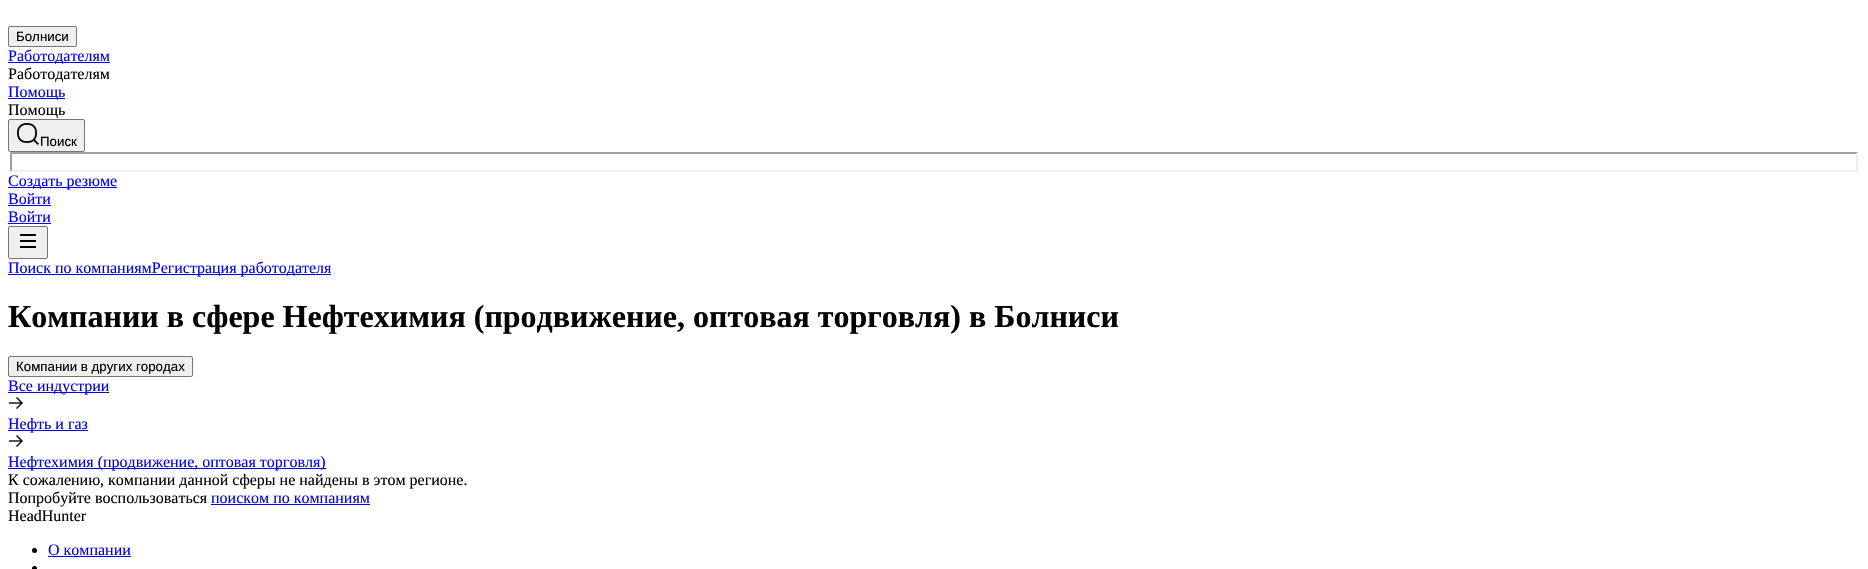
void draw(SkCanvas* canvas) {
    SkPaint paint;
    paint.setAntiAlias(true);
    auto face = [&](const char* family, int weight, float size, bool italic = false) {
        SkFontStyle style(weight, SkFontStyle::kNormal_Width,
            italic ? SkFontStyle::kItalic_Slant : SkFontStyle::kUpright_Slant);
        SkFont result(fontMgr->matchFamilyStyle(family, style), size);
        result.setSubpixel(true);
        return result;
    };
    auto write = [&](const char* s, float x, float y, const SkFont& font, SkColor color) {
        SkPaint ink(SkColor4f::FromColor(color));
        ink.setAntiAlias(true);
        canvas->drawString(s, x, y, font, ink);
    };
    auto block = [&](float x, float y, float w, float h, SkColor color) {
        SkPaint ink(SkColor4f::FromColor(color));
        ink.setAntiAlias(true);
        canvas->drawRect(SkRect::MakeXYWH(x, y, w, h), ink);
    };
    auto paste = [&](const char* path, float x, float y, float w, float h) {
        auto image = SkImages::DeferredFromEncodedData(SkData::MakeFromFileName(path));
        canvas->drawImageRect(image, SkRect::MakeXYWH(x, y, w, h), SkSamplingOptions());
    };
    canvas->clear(SK_ColorWHITE);
    paint.setColor(SkColorSetRGB(239, 239, 239));
    canvas->drawRoundRect(SkRect::MakeXYWH(8.5f, 26.5f, 68, 20), 1.5f, 1.5f, paint);
    paint.setStyle(SkPaint::kStroke_Style);
    paint.setStrokeWidth(1);
    paint.setColor(SkColorSetRGB(118, 118, 118));
    canvas->drawRoundRect(SkRect::MakeXYWH(8.5f, 26.5f, 68, 20), 1.5f, 1.5f, paint);
    auto kFont1 = face("Liberation Sans", 400, 13.3f);
    write("Болниси", 16, 41, kFont1, SK_ColorBLACK);
    block(8, 62, 102, 1, SkColorSetRGB(0, 0, 238));
    auto kFont2 = face("Liberation Serif", 400, 16);
    write("Работодателям", 8, 61, kFont2, SkColorSetRGB(0, 0, 238));
    write("Работодателям", 8, 79, kFont2, SK_ColorBLACK);
    block(8, 98, 57, 1, SkColorSetRGB(0, 0, 238));
    write("Помощь", 8, 97, kFont2, SkColorSetRGB(0, 0, 238));
    write("Помощь", 8, 115, kFont2, SK_ColorBLACK);
    paint.setStyle(SkPaint::kFill_Style);
    paint.setColor(SkColorSetRGB(239, 239, 239));
    canvas->drawRoundRect(SkRect::MakeXYWH(8.5f, 119.5f, 76, 32), 1.5f, 1.5f, paint);
    paint.setStyle(SkPaint::kStroke_Style);
    paint.setColor(SkColorSetRGB(118, 118, 118));
    canvas->drawRoundRect(SkRect::MakeXYWH(8.5f, 119.5f, 76, 32), 1.5f, 1.5f, paint);
    paste("pic1.png", 17, 123, 22, 22);
    write("Поиск", 40, 146, kFont1, SK_ColorBLACK);
    paint.setStyle(SkPaint::kFill_Style);
    paint.setColor(SkColorSetRGB(159, 159, 159));
    canvas->drawPath(SkPathBuilder().moveTo(10, 152).lineTo(1858, 152).lineTo(1856, 154).lineTo(12, 154).close().detach(), paint);
    paint.setColor(SkColorSetRGB(239, 239, 239));
    canvas->drawPath(SkPathBuilder().moveTo(1858, 152).lineTo(1858, 172).lineTo(1856, 170).lineTo(1856, 154).close().detach(), paint);
    canvas->drawPath(SkPathBuilder().moveTo(1858, 172).lineTo(10, 172).lineTo(12, 170).lineTo(1856, 170).close().detach(), paint);
    paint.setColor(SkColorSetRGB(159, 159, 159));
    canvas->drawPath(SkPathBuilder().moveTo(10, 172).lineTo(10, 152).lineTo(12, 154).lineTo(12, 170).close().detach(), paint);
    block(8, 187, 109, 1, SkColorSetRGB(0, 0, 238));
    write("Создать резюме", 8, 186, kFont2, SkColorSetRGB(0, 0, 238));
    write("Войти", 8, 204, kFont2, SkColorSetRGB(0, 0, 238));
    block(8, 205, 43, 1, SkColorSetRGB(0, 0, 238));
    write("Войти", 8, 222, kFont2, SkColorSetRGB(0, 0, 238));
    block(8, 223, 43, 1, SkColorSetRGB(0, 0, 238));
    paint.setColor(SkColorSetRGB(239, 239, 239));
    canvas->drawRoundRect(SkRect::MakeXYWH(8.5f, 226.5f, 39, 32), 1.5f, 1.5f, paint);
    paint.setStyle(SkPaint::kStroke_Style);
    paint.setColor(SkColorSetRGB(118, 118, 118));
    canvas->drawRoundRect(SkRect::MakeXYWH(8.5f, 226.5f, 39, 32), 1.5f, 1.5f, paint);
    block(20, 234, 16, 2, SK_ColorBLACK);
    block(20, 240, 16, 2, SK_ColorBLACK);
    block(20, 246, 16, 2, SK_ColorBLACK);
    block(8, 274, 323, 1, SkColorSetRGB(0, 0, 238));
    write("Поиск по компаниямРегистрация работодателя", 8, 273, kFont2, SkColorSetRGB(0, 0, 238));
    auto kFont3 = face("Liberation Serif", 700, 32);
    write("Компании в сфере Нефтехимия (продвижение, оптовая торговля) в Болниси", 8, 327, kFont3, SK_ColorBLACK);
    paint.setStyle(SkPaint::kFill_Style);
    paint.setColor(SkColorSetRGB(239, 239, 239));
    canvas->drawRoundRect(SkRect::MakeXYWH(8.5f, 356.5f, 184, 20), 1.5f, 1.5f, paint);
    paint.setStyle(SkPaint::kStroke_Style);
    paint.setColor(SkColorSetRGB(118, 118, 118));
    canvas->drawRoundRect(SkRect::MakeXYWH(8.5f, 356.5f, 184, 20), 1.5f, 1.5f, paint);
    write("Компании в других городах", 16, 371, kFont1, SK_ColorBLACK);
    block(8, 392, 101, 1, SkColorSetRGB(0, 0, 238));
    write("Все индустрии", 8, 391, kFont2, SkColorSetRGB(0, 0, 238));
    paste("pic2.png", 9, 397, 14, 12);
    block(8, 430, 80, 1, SkColorSetRGB(0, 0, 238));
    write("Нефть и газ", 8, 429, kFont2, SkColorSetRGB(0, 0, 238));
    paste("pic2.png", 9, 435, 14, 12);
    block(8, 468, 318, 1, SkColorSetRGB(0, 0, 238));
    write("Нефтехимия (продвижение, оптовая торговля)", 8, 467, kFont2, SkColorSetRGB(0, 0, 238));
    write("К сожалению, компании данной сферы не найдены в этом регионе.", 8, 485, kFont2, SK_ColorBLACK);
    write("Попробуйте воспользоваться", 8, 503, kFont2, SK_ColorBLACK);
    write("поиском по компаниям", 211, 503, kFont2, SkColorSetRGB(0, 0, 238));
    block(211, 504, 159, 1, SkColorSetRGB(0, 0, 238));
    write("HeadHunter", 8, 521, kFont2, SK_ColorBLACK);
    paint.setStyle(SkPaint::kFill_Style);
    paint.setColor(SK_ColorBLACK);
    canvas->drawCircle(34.5f, 550.5f, 2.5f, paint);
    write("О компании", 48, 555, kFont2, SkColorSetRGB(0, 0, 238));
    block(48, 556, 83, 1, SkColorSetRGB(0, 0, 238));
    canvas->drawCircle(34.5f, 568.5f, 2.5f, paint);
}
